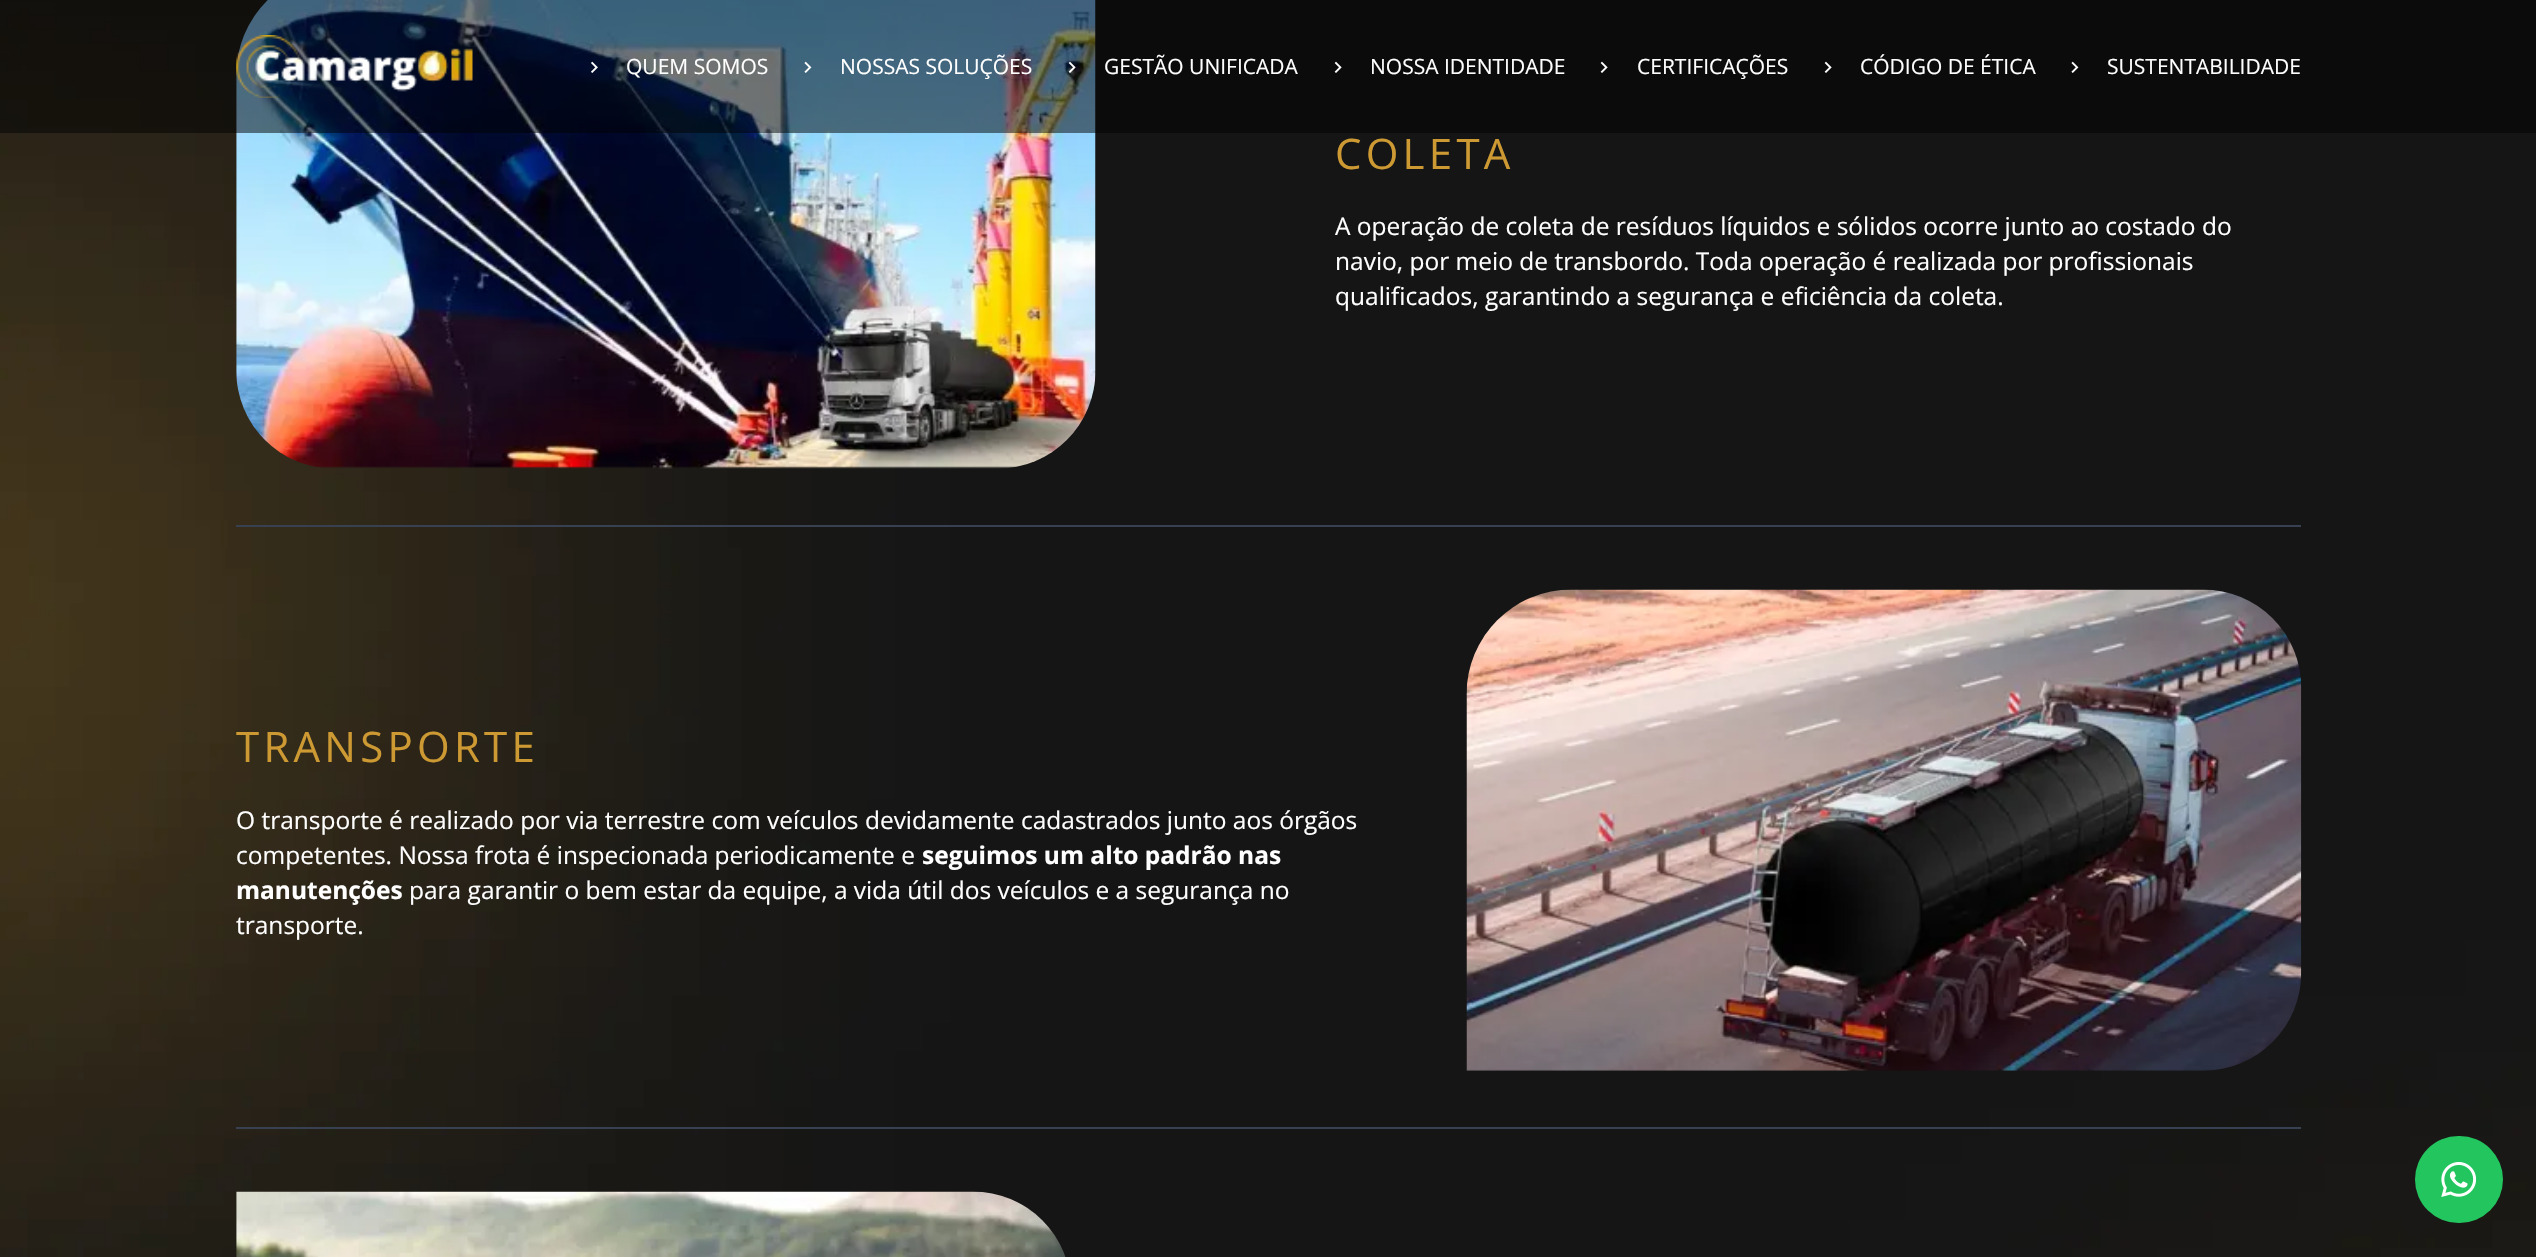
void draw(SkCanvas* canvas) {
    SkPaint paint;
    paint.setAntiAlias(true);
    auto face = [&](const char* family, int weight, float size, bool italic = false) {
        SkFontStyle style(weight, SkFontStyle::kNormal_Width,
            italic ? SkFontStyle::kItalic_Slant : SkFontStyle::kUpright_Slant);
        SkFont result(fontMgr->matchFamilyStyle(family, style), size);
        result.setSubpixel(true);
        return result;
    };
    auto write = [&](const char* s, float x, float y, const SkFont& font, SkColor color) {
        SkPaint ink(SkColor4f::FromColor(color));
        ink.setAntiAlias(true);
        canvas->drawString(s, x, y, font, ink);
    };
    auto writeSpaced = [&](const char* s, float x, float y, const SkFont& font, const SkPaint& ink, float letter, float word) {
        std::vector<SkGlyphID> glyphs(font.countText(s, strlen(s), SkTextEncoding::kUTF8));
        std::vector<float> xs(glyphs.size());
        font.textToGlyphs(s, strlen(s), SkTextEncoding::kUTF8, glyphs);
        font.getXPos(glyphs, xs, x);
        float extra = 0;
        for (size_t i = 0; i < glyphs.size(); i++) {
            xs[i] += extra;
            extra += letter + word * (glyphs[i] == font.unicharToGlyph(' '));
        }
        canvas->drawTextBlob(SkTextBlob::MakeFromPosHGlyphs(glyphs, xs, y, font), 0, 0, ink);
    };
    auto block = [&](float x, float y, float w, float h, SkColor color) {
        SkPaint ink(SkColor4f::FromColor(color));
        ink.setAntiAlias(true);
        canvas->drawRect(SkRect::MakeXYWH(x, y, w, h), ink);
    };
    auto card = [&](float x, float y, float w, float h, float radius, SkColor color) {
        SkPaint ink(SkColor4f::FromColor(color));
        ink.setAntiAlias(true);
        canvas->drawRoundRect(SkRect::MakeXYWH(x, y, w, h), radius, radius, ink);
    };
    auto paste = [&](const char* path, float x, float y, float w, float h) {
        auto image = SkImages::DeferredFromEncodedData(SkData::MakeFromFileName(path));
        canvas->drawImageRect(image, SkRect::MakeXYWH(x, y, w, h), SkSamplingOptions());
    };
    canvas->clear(SK_ColorWHITE);
    paste("pic7.png", 0, 0, 2536, 1257);
    paste("pic8.png", 236, 0, 860, 469);
    block(0, 0, 2536, 133, SkColorSetARGB(128, 0, 0, 0));
    paste("pic1.png", 236, 35, 237, 63);
    paste("pic2.png", 591, 61, 7, 12);
    auto kFont1 = face("Open Sans", 400, 21);
    write("QUEM SOMOS", 626, 74, kFont1, SK_ColorWHITE);
    paste("pic3.png", 804, 61, 8, 12);
    write("NOSSAS SOLUÇÕES", 840, 74, kFont1, SK_ColorWHITE);
    paste("pic4.png", 1068, 61, 8, 12);
    write("GESTÃO UNIFICADA", 1104, 74, kFont1, SK_ColorWHITE);
    paste("pic5.png", 1334, 61, 8, 12);
    write("NOSSA IDENTIDADE", 1370, 74, kFont1, SK_ColorWHITE);
    paste("pic5.png", 1600, 61, 8, 12);
    write("CERTIFICAÇÕES", 1637, 74, kFont1, SK_ColorWHITE);
    paste("pic5.png", 1824, 61, 8, 12);
    write("CÓDIGO DE ÉTICA", 1860, 74, kFont1, SK_ColorWHITE);
    paste("pic6.png", 2071, 61, 8, 12);
    write("SUSTENTABILIDADE", 2107, 74, kFont1, SK_ColorWHITE);
    block(236, 525, 2065, 2, SkColorSetRGB(55, 65, 81));
    auto kFont2 = face("Open Sans", 400, 42);
    paint.setColor(SkColorSetRGB(205, 153, 51));
    writeSpaced("COLETA", 1335, 169, kFont2, paint, 4.25f, 0);
    auto kFont3 = face("Open Sans", 400, 24.5f);
    write("A operação de coleta de resíduos líquidos e sólidos ocorre junto ao costado do", 1335, 235, kFont3, SK_ColorWHITE);
    write("navio, por meio de transbordo. Toda operação é realizada por profissionais", 1335, 270, kFont3, SK_ColorWHITE);
    write("qualificados, garantindo a segurança e eficiência da coleta.", 1335, 305, kFont3, SK_ColorWHITE);
    block(236, 1127, 2065, 2, SkColorSetRGB(55, 65, 81));
    writeSpaced("TRANSPORTE", 236, 762, kFont2, paint, 4.25f, 0);
    write("O transporte é realizado por via terrestre com veículos devidamente cadastrados junto aos órgãos", 236, 829, kFont3, SK_ColorWHITE);
    write("competentes. Nossa frota é inspecionada periodicamente e", 236, 864, kFont3, SK_ColorWHITE);
    auto kFont4 = face("Open Sans", 700, 24.5f);
    write("seguimos um alto padrão nas", 922, 864, kFont4, SK_ColorWHITE);
    write("manutenções", 236, 899, kFont4, SK_ColorWHITE);
    write("para garantir o bem estar da equipe, a vida útil dos veículos e a segurança no", 409, 899, kFont3, SK_ColorWHITE);
    write("transporte.", 236, 934, kFont3, SK_ColorWHITE);
    paste("pic9.png", 1466, 589, 836, 482);
    paste("pic10.png", 236, 1191, 830, 66);
    card(2415, 1136, 88, 87, 43.5f, SkColorSetRGB(34, 197, 94));
    paste("pic11.png", 2441, 1162, 35, 35);
}
